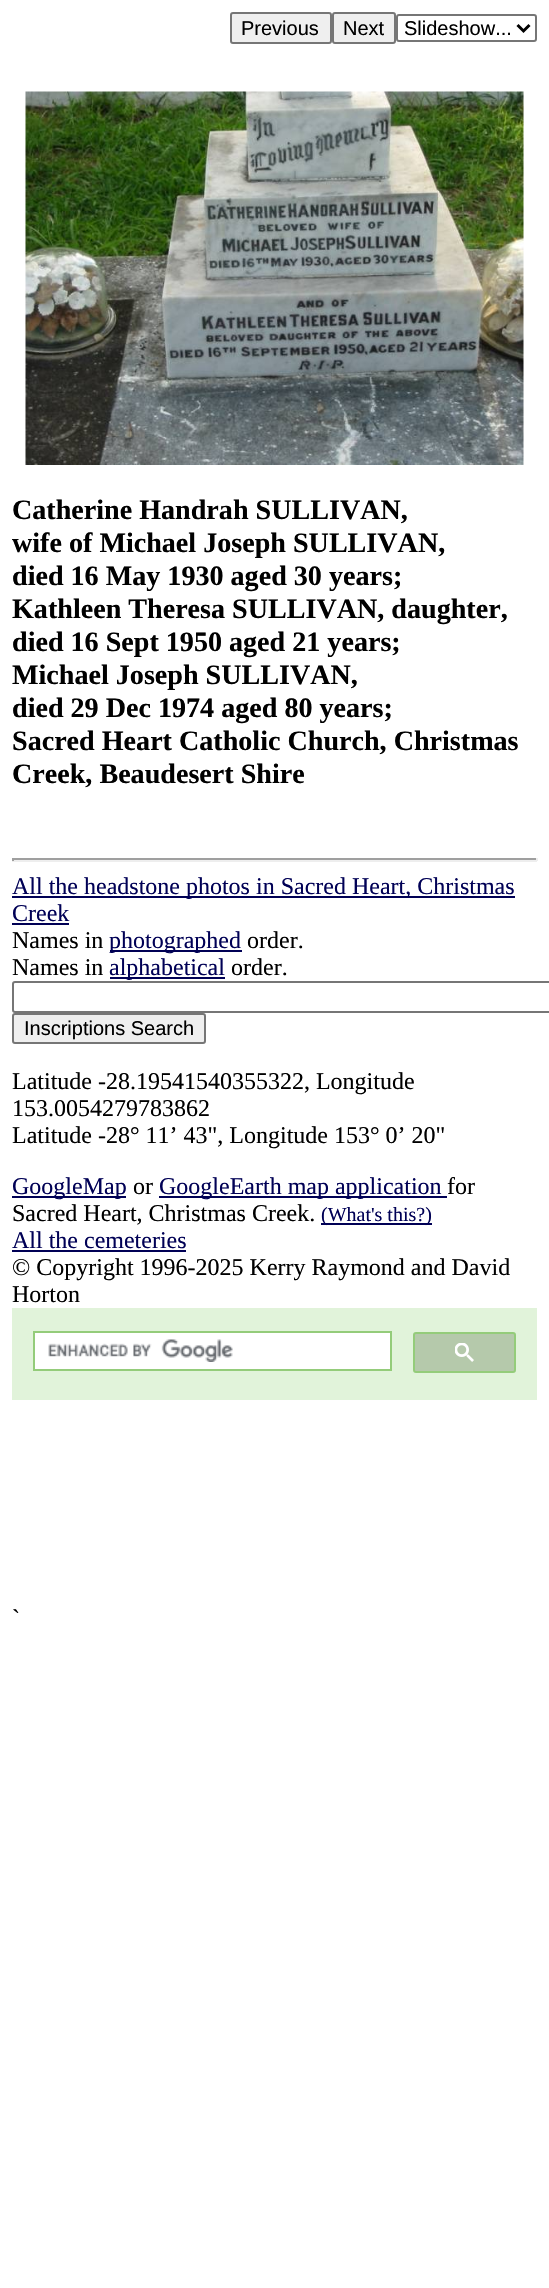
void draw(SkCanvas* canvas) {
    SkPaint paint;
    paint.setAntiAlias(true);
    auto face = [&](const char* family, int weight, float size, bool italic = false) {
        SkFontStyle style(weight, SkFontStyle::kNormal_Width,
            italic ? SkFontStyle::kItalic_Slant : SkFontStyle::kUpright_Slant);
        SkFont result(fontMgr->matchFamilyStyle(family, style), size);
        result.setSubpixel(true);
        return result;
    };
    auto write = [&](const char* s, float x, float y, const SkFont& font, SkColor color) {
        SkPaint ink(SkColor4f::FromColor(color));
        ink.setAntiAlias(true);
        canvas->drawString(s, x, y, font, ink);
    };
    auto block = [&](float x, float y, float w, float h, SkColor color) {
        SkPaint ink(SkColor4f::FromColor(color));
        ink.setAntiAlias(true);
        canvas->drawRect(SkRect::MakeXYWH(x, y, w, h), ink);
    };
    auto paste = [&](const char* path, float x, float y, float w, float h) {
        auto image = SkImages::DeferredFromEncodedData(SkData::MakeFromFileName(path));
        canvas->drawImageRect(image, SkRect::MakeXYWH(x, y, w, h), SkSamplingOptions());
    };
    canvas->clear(SK_ColorWHITE);
    paint.setColor(SkColorSetRGB(239, 239, 239));
    canvas->drawRoundRect(SkRect::MakeXYWH(231, 13, 100, 30), 2, 2, paint);
    paint.setStyle(SkPaint::kStroke_Style);
    paint.setStrokeWidth(2);
    paint.setColor(SkColorSetRGB(118, 118, 118));
    canvas->drawRoundRect(SkRect::MakeXYWH(231, 13, 100, 30), 2, 2, paint);
    auto kFont1 = face("Liberation Sans", 400, 20);
    write("Previous", 241, 35, kFont1, SK_ColorBLACK);
    paint.setStyle(SkPaint::kFill_Style);
    paint.setColor(SkColorSetRGB(239, 239, 239));
    canvas->drawRoundRect(SkRect::MakeXYWH(333, 13, 62, 30), 2, 2, paint);
    paint.setStyle(SkPaint::kStroke_Style);
    paint.setColor(SkColorSetRGB(118, 118, 118));
    canvas->drawRoundRect(SkRect::MakeXYWH(333, 13, 62, 30), 2, 2, paint);
    write("Next", 343, 35, kFont1, SK_ColorBLACK);
    canvas->drawRoundRect(SkRect::MakeXYWH(397, 15, 139, 26), 2, 2, paint);
    paint.setStrokeWidth(3);
    paint.setColor(SK_ColorBLACK);
    canvas->drawPath(SkPathBuilder().moveTo(517.5f, 25).lineTo(523.5f, 31).lineTo(529.5f, 25).detach(), paint);
    write("Slideshow...", 404, 35, kFont1, SK_ColorBLACK);
    paste("pic1.png", 25, 91, 499, 374);
    auto kFont2 = face("Liberation Serif", 700, 28.1f);
    write("Catherine Handrah SULLIVAN,", 12, 519, kFont2, SK_ColorBLACK);
    write("wife of Michael Joseph SULLIVAN,", 12, 552, kFont2, SK_ColorBLACK);
    write("died 16 May 1930 aged 30 years;", 12, 585, kFont2, SK_ColorBLACK);
    write("Kathleen Theresa SULLIVAN, daughter,", 12, 618, kFont2, SK_ColorBLACK);
    write("died 16 Sept 1950 aged 21 years;", 12, 651, kFont2, SK_ColorBLACK);
    write("Michael Joseph SULLIVAN,", 12, 684, kFont2, SK_ColorBLACK);
    write("died 29 Dec 1974 aged 80 years;", 12, 717, kFont2, SK_ColorBLACK);
    write("Sacred Heart Catholic Church, Christmas", 12, 750, kFont2, SK_ColorBLACK);
    write("Creek, Beaudesert Shire", 12, 783, kFont2, SK_ColorBLACK);
    block(12, 858, 525, 2, SkColorSetRGB(159, 159, 159));
    block(536, 858, 2, 3, SkColorSetRGB(238, 238, 238));
    block(12, 860, 525, 2, SkColorSetRGB(238, 238, 238));
    block(12, 858, 2, 3, SkColorSetRGB(159, 159, 159));
    block(12, 896, 503, 2, SkColorSetRGB(0, 0, 85));
    auto kFont3 = face("Liberation Serif", 400, 24);
    write("All the headstone photos in Sacred Heart, Christmas", 12, 894, kFont3, SkColorSetRGB(0, 0, 85));
    write("Creek", 12, 921, kFont3, SkColorSetRGB(0, 0, 85));
    block(12, 923, 57, 2, SkColorSetRGB(0, 0, 85));
    write("Names in", 12, 948, kFont3, SK_ColorBLACK);
    block(110, 950, 132, 2, SkColorSetRGB(0, 0, 85));
    write("photographed", 109, 948, kFont3, SkColorSetRGB(0, 0, 85));
    write("order.", 247, 948, kFont3, SK_ColorBLACK);
    write("Names in", 12, 975, kFont3, SK_ColorBLACK);
    block(110, 977, 115, 2, SkColorSetRGB(0, 0, 85));
    write("alphabetical", 109, 975, kFont3, SkColorSetRGB(0, 0, 85));
    write("order.", 231, 975, kFont3, SK_ColorBLACK);
    paint.setStrokeWidth(2);
    paint.setColor(SkColorSetRGB(118, 118, 118));
    canvas->drawRoundRect(SkRect::MakeXYWH(13, 982, 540, 30), 2, 2, paint);
    paint.setStyle(SkPaint::kFill_Style);
    paint.setColor(SkColorSetRGB(239, 239, 239));
    canvas->drawRoundRect(SkRect::MakeXYWH(13, 1014, 192, 29), 2, 2, paint);
    paint.setStyle(SkPaint::kStroke_Style);
    paint.setColor(SkColorSetRGB(118, 118, 118));
    canvas->drawRoundRect(SkRect::MakeXYWH(13, 1014, 192, 29), 2, 2, paint);
    write("Inscriptions Search", 24, 1035, kFont1, SK_ColorBLACK);
    write("Latitude -28.19541540355322, Longitude", 12, 1089, kFont3, SK_ColorBLACK);
    write("153.0054279783862", 12, 1116, kFont3, SK_ColorBLACK);
    write("Latitude -28° 11’ 43\", Longitude 153° 0’ 20\"", 12, 1143, kFont3, SK_ColorBLACK);
    block(12, 1196, 114, 2, SkColorSetRGB(0, 0, 85));
    write("GoogleMap", 12, 1194, kFont3, SkColorSetRGB(0, 0, 85));
    write("or", 133, 1194, kFont3, SK_ColorBLACK);
    block(159, 1196, 288, 2, SkColorSetRGB(0, 0, 85));
    write("GoogleEarth map application", 159, 1194, kFont3, SkColorSetRGB(0, 0, 85));
    write("for", 447, 1194, kFont3, SK_ColorBLACK);
    write("Sacred Heart, Christmas Creek.", 12, 1221, kFont3, SK_ColorBLACK);
    block(321, 1223, 111, 2, SkColorSetRGB(0, 0, 85));
    auto kFont4 = face("Liberation Serif", 400, 20);
    write("(What's this?)", 321, 1221, kFont4, SkColorSetRGB(0, 0, 85));
    write("All the cemeteries", 12, 1248, kFont3, SkColorSetRGB(0, 0, 85));
    block(12, 1250, 174, 2, SkColorSetRGB(0, 0, 85));
    write("© Copyright 1996-2025 Kerry Raymond and David", 12, 1275, kFont3, SK_ColorBLACK);
    write("Horton", 12, 1302, kFont3, SK_ColorBLACK);
    block(12, 1308, 525, 92, SkColorSetRGB(225, 243, 218));
    paint.setStyle(SkPaint::kFill_Style);
    paint.setColor(SK_ColorWHITE);
    canvas->drawRect(SkRect::MakeXYWH(34, 1332, 357, 38), paint);
    paint.setStyle(SkPaint::kStroke_Style);
    paint.setColor(SkColorSetRGB(148, 204, 122));
    canvas->drawRect(SkRect::MakeXYWH(34, 1332, 357, 38), paint);
    paste("pic2.png", 48, 1339, 185, 23);
    paint.setStyle(SkPaint::kFill_Style);
    paint.setColor(SkColorSetRGB(181, 201, 171));
    canvas->drawRoundRect(SkRect::MakeXYWH(414, 1333, 101, 39), 2, 2, paint);
    paint.setStyle(SkPaint::kStroke_Style);
    paint.setColor(SkColorSetRGB(148, 204, 122));
    canvas->drawRoundRect(SkRect::MakeXYWH(414, 1333, 101, 39), 2, 2, paint);
    paste("pic3.png", 455, 1343, 19, 19);
    write("`", 12, 1626, kFont3, SK_ColorBLACK);
}
